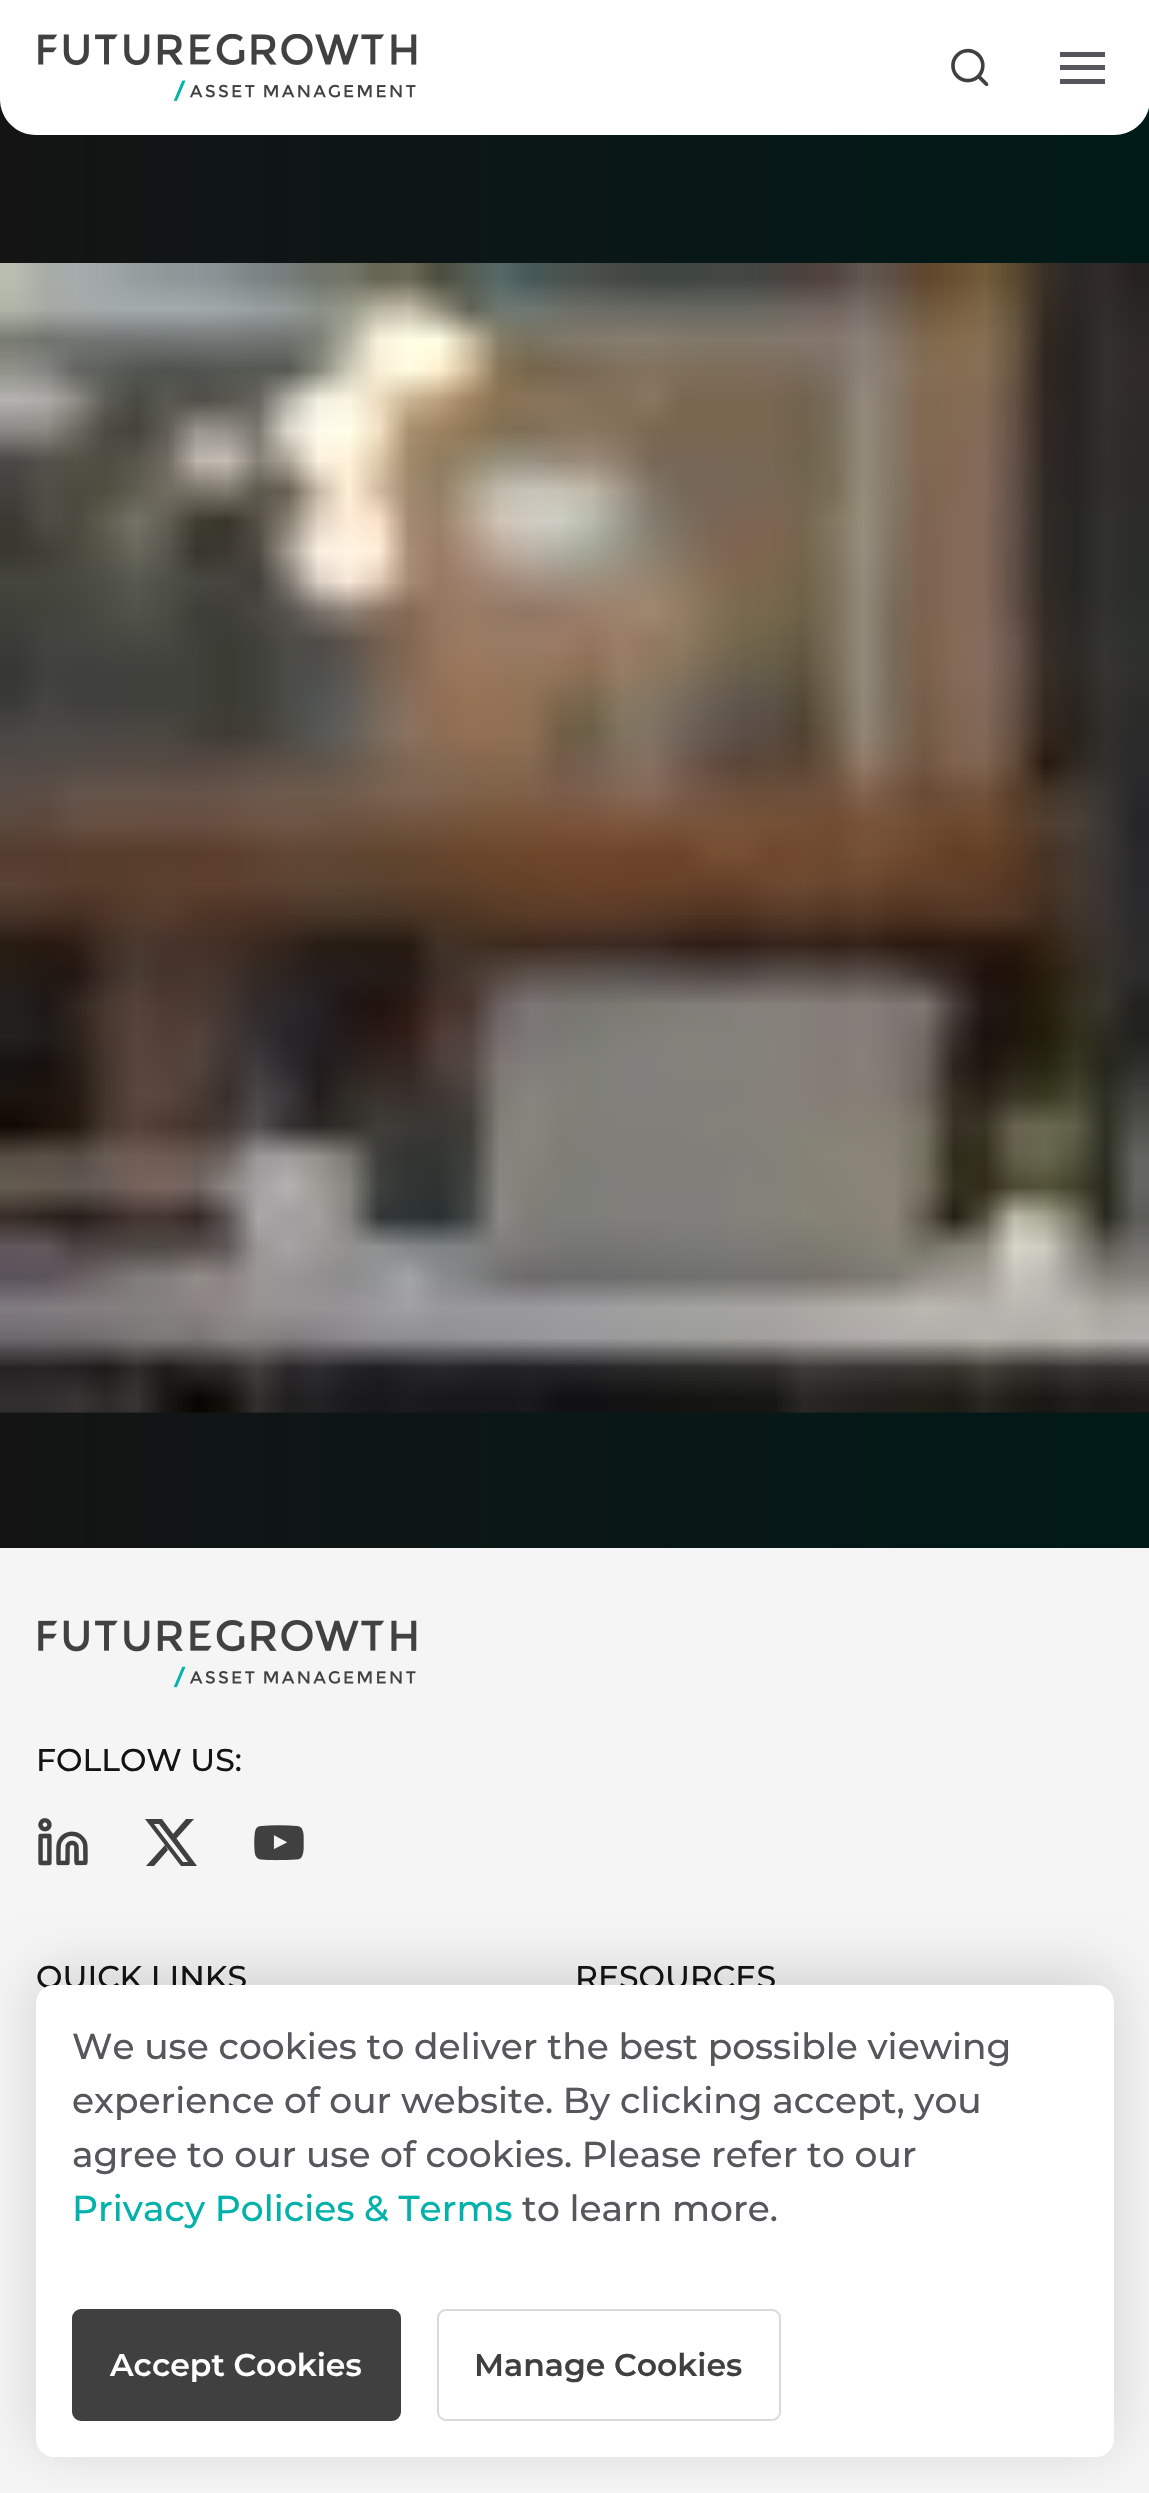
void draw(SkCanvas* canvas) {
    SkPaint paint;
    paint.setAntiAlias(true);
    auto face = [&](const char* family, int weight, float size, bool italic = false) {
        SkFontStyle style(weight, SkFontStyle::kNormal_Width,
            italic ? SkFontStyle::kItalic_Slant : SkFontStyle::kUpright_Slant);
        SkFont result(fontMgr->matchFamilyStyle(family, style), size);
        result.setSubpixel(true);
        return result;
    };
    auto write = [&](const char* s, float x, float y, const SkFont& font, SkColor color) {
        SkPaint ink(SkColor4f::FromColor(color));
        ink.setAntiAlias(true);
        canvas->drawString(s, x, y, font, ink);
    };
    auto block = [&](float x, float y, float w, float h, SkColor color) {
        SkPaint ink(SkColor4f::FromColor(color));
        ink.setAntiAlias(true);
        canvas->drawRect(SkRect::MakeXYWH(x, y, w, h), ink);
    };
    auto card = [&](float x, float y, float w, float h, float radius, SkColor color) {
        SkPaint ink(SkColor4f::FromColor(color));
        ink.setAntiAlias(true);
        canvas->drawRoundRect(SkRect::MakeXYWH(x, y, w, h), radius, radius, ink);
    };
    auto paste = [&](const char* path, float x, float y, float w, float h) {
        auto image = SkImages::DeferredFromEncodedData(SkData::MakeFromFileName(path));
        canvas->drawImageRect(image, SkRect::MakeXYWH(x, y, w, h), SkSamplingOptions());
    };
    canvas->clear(SK_ColorWHITE);
    {
        const SkColor colors[] = {SkColorSetRGB(20, 20, 20), SkColorSetRGB(0, 26, 24)};
        const float stops[] = {0, 1};
        const SkPoint ends[] = {{0, 451}, {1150, 451}};
        paint.setShader(SkGradientShader::MakeLinear(ends, colors, stops, 2, SkTileMode::kClamp));
        paint.setAlpha(255);
    }
    canvas->drawRect(SkRect::MakeXYWH(0, 99, 1149, 1449), paint);
    paint.setShader(nullptr);
    paint.setColor(SK_ColorWHITE);
    canvas->drawPath(SkPathBuilder().moveTo(0, 0).lineTo(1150, 0).lineTo(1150, 99).cubicTo(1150, 119, 1134, 135, 1114, 135).lineTo(36, 135).cubicTo(16, 135, 0, 119, 0, 99).close().detach(), paint);
    paste("pic1.png", 38, 34, 379, 67);
    paste("pic2.png", 951, 48, 38, 39);
    block(1060, 52, 45, 5, SkColorSetRGB(86, 87, 92));
    block(1060, 65, 45, 5, SkColorSetRGB(86, 87, 92));
    block(1060, 79, 45, 5, SkColorSetRGB(86, 87, 92));
    paste("pic3.png", 0, 263, 1149, 1150);
    block(0, 1548, 1149, 945, SkColorSetRGB(245, 245, 245));
    paste("pic4.png", 38, 1620, 379, 68);
    auto kFont1 = face("Montserrat", 500, 31.5f);
    write("FOLLOW US:", 36, 1771, kFont1, SkColorSetRGB(20, 20, 20));
    paste("pic5.png", 38, 1818, 50, 48);
    paint.setColor(SkColorSetRGB(64, 64, 65));
    canvas->drawPath(SkPathBuilder().moveTo(168, 1850).lineTo(154, 1866).lineTo(146, 1866).lineTo(165, 1845).close().moveTo(173, 1834).lineTo(186, 1819).lineTo(194, 1819).lineTo(176, 1839).close().moveTo(197, 1866).lineTo(181, 1866).lineTo(145, 1819).lineTo(162, 1819).close().moveTo(183, 1862).lineTo(188, 1862).lineTo(159, 1824).lineTo(154, 1824).close().detach(), paint);
    paste("pic6.png", 254, 1825, 50, 36);
    write("QUICK LINKS", 36, 1988, kFont1, SkColorSetRGB(20, 20, 20));
    write("RESOURCES", 575, 1988, kFont1, SkColorSetRGB(20, 20, 20));
    paint.setColor(SkColorSetARGB(38, 0, 0, 0));
    paint.setMaskFilter(SkMaskFilter::MakeBlur(kNormal_SkBlurStyle, 28));
    canvas->drawRoundRect(SkRect::MakeXYWH(36, 1973, 1078, 473), 18, 18, paint);
    paint.setMaskFilter(nullptr);
    card(36, 1985, 1078, 472, 18, SK_ColorWHITE);
    auto kFont2 = face("Montserrat", 500, 36);
    write("We use cookies to deliver the best possible viewing", 72, 2059, kFont2, SkColorSetRGB(86, 87, 92));
    write("experience of our website. By clicking accept, you", 72, 2113, kFont2, SkColorSetRGB(86, 87, 92));
    write("agree to our use of cookies. Please refer to our", 72, 2167, kFont2, SkColorSetRGB(86, 87, 92));
    write("Privacy Policies & Terms", 72, 2221, kFont2, SkColorSetRGB(0, 178, 169));
    write("to learn more.", 522, 2221, kFont2, SkColorSetRGB(86, 87, 92));
    paint.setColor(SkColorSetRGB(64, 64, 65));
    canvas->drawRoundRect(SkRect::MakeXYWH(73, 2310, 327, 110), 8, 8, paint);
    paint.setStyle(SkPaint::kStroke_Style);
    paint.setStrokeWidth(2);
    canvas->drawRoundRect(SkRect::MakeXYWH(73, 2310, 327, 110), 8, 8, paint);
    auto kFont3 = face("Montserrat", 600, 31.5f);
    write("Accept Cookies", 110, 2376, kFont3, SK_ColorWHITE);
    paint.setColor(SkColorSetRGB(217, 217, 217));
    canvas->drawRoundRect(SkRect::MakeXYWH(438, 2310, 342, 110), 8, 8, paint);
    write("Manage Cookies", 474, 2376, kFont3, SkColorSetRGB(64, 64, 65));
}
